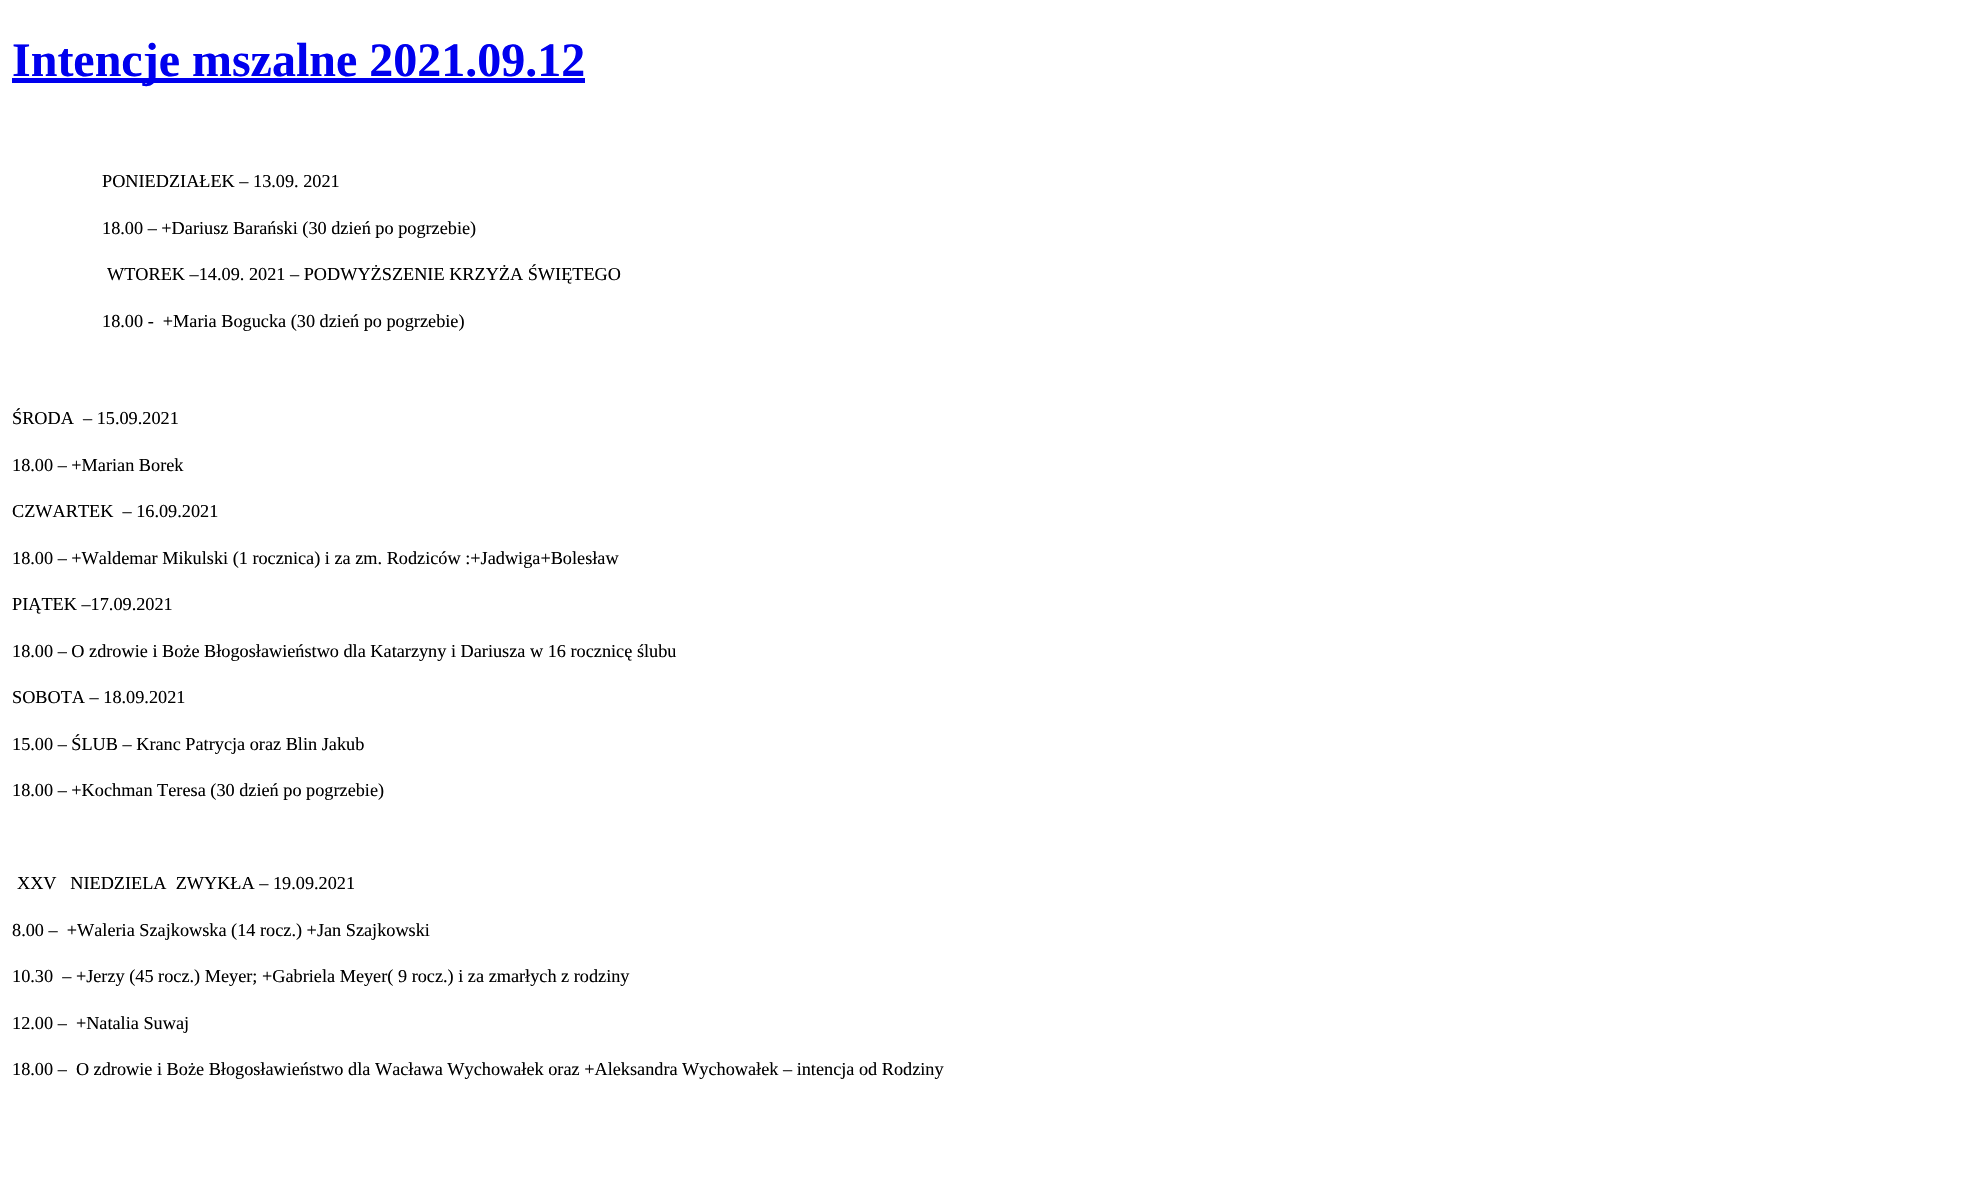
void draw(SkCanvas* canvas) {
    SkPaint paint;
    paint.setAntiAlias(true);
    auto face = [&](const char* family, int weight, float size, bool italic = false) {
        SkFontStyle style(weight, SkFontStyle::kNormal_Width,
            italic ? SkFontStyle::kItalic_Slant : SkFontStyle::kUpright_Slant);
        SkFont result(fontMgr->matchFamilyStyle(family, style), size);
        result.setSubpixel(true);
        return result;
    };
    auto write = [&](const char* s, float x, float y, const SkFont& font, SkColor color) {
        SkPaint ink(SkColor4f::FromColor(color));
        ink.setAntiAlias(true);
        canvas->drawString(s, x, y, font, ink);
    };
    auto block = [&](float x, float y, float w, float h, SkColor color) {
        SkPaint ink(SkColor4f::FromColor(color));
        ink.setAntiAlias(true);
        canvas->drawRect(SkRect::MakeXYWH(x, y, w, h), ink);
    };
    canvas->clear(SK_ColorWHITE);
    block(12, 78, 573, 5, SkColorSetRGB(0, 0, 238));
    auto kFont1 = face("Liberation Serif", 700, 48);
    write("Intencje mszalne 2021.09.12", 12, 76, kFont1, SkColorSetRGB(0, 0, 238));
    auto kFont2 = face("Liberation Serif", 400, 18.25f);
    write("PONIEDZIAŁEK – 13.09. 2021", 102, 187, kFont2, SK_ColorBLACK);
    write("18.00 – +Dariusz Barański (30 dzień po pogrzebie)", 102, 234, kFont2, SK_ColorBLACK);
    write("WTOREK –14.09. 2021 – PODWYŻSZENIE KRZYŻA ŚWIĘTEGO", 107, 280, kFont2, SK_ColorBLACK);
    write("18.00 -  +Maria Bogucka (30 dzień po pogrzebie)", 102, 327, kFont2, SK_ColorBLACK);
    write("ŚRODA  – 15.09.2021", 12, 424, kFont2, SK_ColorBLACK);
    write("18.00 – +Marian Borek", 12, 471, kFont2, SK_ColorBLACK);
    write("CZWARTEK  – 16.09.2021", 12, 517, kFont2, SK_ColorBLACK);
    write("18.00 – +Waldemar Mikulski (1 rocznica) i za zm. Rodziców :+Jadwiga+Bolesław", 12, 564, kFont2, SK_ColorBLACK);
    write("PIĄTEK –17.09.2021", 12, 610, kFont2, SK_ColorBLACK);
    write("18.00 – O zdrowie i Boże Błogosławieństwo dla Katarzyny i Dariusza w 16 rocznicę ślubu", 12, 657, kFont2, SK_ColorBLACK);
    write("SOBOTA – 18.09.2021", 12, 703, kFont2, SK_ColorBLACK);
    write("15.00 – ŚLUB – Kranc Patrycja oraz Blin Jakub", 12, 750, kFont2, SK_ColorBLACK);
    write("18.00 – +Kochman Teresa (30 dzień po pogrzebie)", 12, 796, kFont2, SK_ColorBLACK);
    write("XXV   NIEDZIELA  ZWYKŁA – 19.09.2021", 17, 889, kFont2, SK_ColorBLACK);
    write("8.00 –  +Waleria Szajkowska (14 rocz.) +Jan Szajkowski", 12, 936, kFont2, SK_ColorBLACK);
    write("10.30  – +Jerzy (45 rocz.) Meyer; +Gabriela Meyer( 9 rocz.) i za zmarłych z rodziny", 12, 982, kFont2, SK_ColorBLACK);
    write("12.00 –  +Natalia Suwaj", 12, 1029, kFont2, SK_ColorBLACK);
    write("18.00 –  O zdrowie i Boże Błogosławieństwo dla Wacława Wychowałek oraz +Aleksandra Wychowałek – intencja od Rodziny", 12, 1075, kFont2, SK_ColorBLACK);
}
